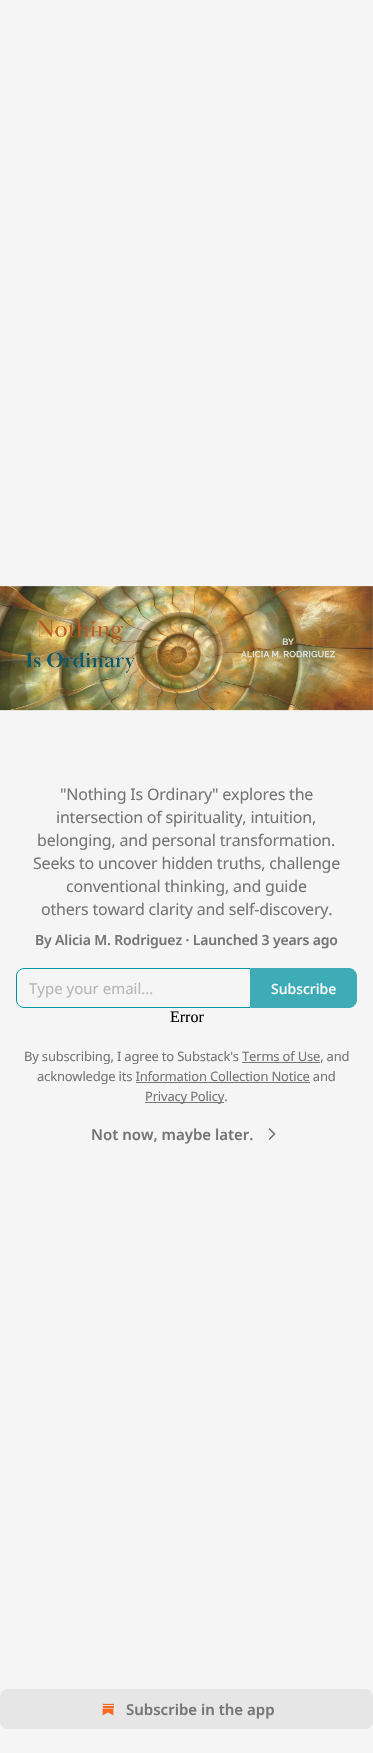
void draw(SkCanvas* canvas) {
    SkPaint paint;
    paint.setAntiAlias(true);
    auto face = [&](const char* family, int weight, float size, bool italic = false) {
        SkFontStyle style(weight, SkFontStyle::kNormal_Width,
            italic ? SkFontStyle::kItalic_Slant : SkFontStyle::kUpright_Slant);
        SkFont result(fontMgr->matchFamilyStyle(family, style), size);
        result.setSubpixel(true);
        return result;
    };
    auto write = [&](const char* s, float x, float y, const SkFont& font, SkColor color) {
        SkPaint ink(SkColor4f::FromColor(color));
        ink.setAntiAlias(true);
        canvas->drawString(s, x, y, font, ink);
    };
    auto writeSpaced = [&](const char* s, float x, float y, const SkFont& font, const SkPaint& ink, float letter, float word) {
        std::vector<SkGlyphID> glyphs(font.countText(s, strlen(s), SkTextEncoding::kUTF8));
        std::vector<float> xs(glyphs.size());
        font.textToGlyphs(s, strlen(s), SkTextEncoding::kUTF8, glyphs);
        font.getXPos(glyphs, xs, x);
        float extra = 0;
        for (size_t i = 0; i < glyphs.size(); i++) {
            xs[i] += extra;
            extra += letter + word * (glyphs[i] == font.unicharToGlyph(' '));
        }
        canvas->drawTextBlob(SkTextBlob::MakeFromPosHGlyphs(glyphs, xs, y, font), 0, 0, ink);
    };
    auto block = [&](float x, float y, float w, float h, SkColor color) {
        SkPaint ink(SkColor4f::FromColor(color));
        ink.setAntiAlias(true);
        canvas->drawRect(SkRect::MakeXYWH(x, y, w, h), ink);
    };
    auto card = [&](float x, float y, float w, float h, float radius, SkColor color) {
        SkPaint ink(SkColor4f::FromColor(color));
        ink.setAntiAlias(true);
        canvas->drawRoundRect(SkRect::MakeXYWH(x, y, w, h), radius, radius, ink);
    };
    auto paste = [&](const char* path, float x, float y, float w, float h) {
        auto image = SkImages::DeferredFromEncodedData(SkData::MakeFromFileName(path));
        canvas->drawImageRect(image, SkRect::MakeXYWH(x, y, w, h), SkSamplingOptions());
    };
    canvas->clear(SkColorSetRGB(245, 245, 245));
    paste("pic1.png", 0, 586, 373, 125);
    auto kFont1 = face("Noto Sans", 400, 16);
    paint.setColor(SkColorSetRGB(117, 117, 117));
    writeSpaced("\"Nothing Is Ordinary\" explores the", 60, 800, kFont1, paint, -0.2f, 0);
    writeSpaced("intersection of spirituality, intuition,", 56, 823, kFont1, paint, -0.2f, 0);
    writeSpaced("belonging, and personal transformation.", 37, 846, kFont1, paint, -0.2f, 0);
    writeSpaced("Seeks to uncover hidden truths, challenge", 33, 869, kFont1, paint, -0.2f, 0);
    writeSpaced("conventional thinking, and guide", 66, 892, kFont1, paint, -0.2f, 0);
    writeSpaced("others toward clarity and self-discovery.", 41, 915, kFont1, paint, -0.2f, 0);
    auto kFont2 = face("Noto Sans", 600, 14);
    writeSpaced("By Alicia M. Rodriguez · Launched 3 years ago", 35, 945, kFont2, paint, -0.15f, 0);
    paint.setColor(SkColorSetRGB(0, 147, 162));
    canvas->drawPath(SkPathBuilder(SkPathFillType::kEvenOdd).moveTo(24, 968).lineTo(250, 968).lineTo(250, 1008).lineTo(24, 1008).cubicTo(20, 1008, 16, 1004, 16, 1000).lineTo(16, 976).cubicTo(16, 972, 20, 968, 24, 968).close().moveTo(24, 969).lineTo(250, 969).lineTo(250, 1007).lineTo(24, 1007).cubicTo(20, 1007, 17, 1004, 17, 1000).lineTo(17, 976).cubicTo(17, 972, 20, 969, 24, 969).close().detach(), paint);
    auto kFont3 = face("Noto Sans", 400, 15);
    write("Type your email...", 29, 994, kFont3, SkColorSetRGB(182, 182, 182));
    paint.setColor(SkColorSetRGB(61, 172, 183));
    canvas->drawPath(SkPathBuilder().moveTo(250.5f, 968.5f).lineTo(349, 968.5f).cubicTo(353, 968.5f, 356.5f, 972, 356.5f, 976).lineTo(356.5f, 1000).cubicTo(356.5f, 1004, 353, 1007.5f, 349, 1007.5f).lineTo(250.5f, 1007.5f).close().detach(), paint);
    paint.setStyle(SkPaint::kStroke_Style);
    paint.setStrokeWidth(1);
    canvas->drawPath(SkPathBuilder().moveTo(250.5f, 968.5f).lineTo(349, 968.5f).cubicTo(353, 968.5f, 356.5f, 972, 356.5f, 976).lineTo(356.5f, 1000).cubicTo(356.5f, 1004, 353, 1007.5f, 349, 1007.5f).lineTo(250.5f, 1007.5f).close().detach(), paint);
    auto kFont4 = face("Noto Sans", 500, 14);
    write("Subscribe", 271, 994, kFont4, SkColorSetRGB(253, 253, 253));
    auto kFont5 = face("Liberation Serif", 400, 16);
    write("Error", 170, 1022, kFont5, SK_ColorBLACK);
    auto kFont6 = face("Noto Sans", 400, 13);
    paint.setStyle(SkPaint::kFill_Style);
    paint.setColor(SkColorSetRGB(117, 117, 117));
    writeSpaced("By subscribing, I agree to Substack's Terms of Use, and", 24, 1061, kFont6, paint, -0.2f, 0);
    block(242, 1062, 78, 1, SkColorSetRGB(119, 119, 119));
    writeSpaced("acknowledge its Information Collection Notice and", 37, 1081, kFont6, paint, -0.2f, 0);
    block(136, 1082, 174, 1, SkColorSetRGB(119, 119, 119));
    block(145, 1102, 79, 1, SkColorSetRGB(119, 119, 119));
    writeSpaced("Privacy Policy.", 145, 1101, kFont6, paint, -0.2f, 0);
    auto kFont7 = face("Noto Sans", 600, 15);
    write("Not now, maybe later.", 91, 1140, kFont7, SkColorSetRGB(117, 117, 117));
    paint.setStyle(SkPaint::kStroke_Style);
    paint.setStrokeWidth(1.7f);
    paint.setStrokeCap(SkPaint::kRound_Cap);
    paint.setStrokeJoin(SkPaint::kRound_Join);
    canvas->drawPath(SkPathBuilder().moveTo(269.5f, 1139).lineTo(274.5f, 1134).lineTo(269.5f, 1129).detach(), paint);
    card(0, 1689, 373, 40, 8, SkColorSetRGB(230, 230, 230));
    paste("pic2.png", 102, 1703, 12, 13);
    write("Subscribe in the app", 126, 1715, kFont7, SkColorSetRGB(117, 117, 117));
}
